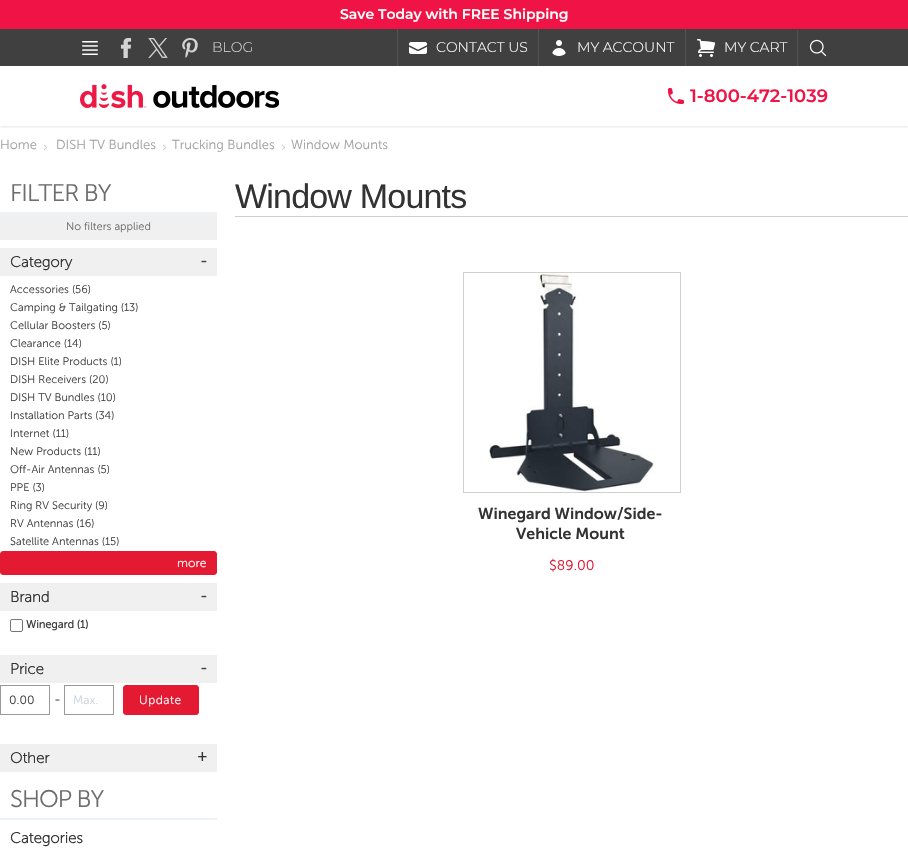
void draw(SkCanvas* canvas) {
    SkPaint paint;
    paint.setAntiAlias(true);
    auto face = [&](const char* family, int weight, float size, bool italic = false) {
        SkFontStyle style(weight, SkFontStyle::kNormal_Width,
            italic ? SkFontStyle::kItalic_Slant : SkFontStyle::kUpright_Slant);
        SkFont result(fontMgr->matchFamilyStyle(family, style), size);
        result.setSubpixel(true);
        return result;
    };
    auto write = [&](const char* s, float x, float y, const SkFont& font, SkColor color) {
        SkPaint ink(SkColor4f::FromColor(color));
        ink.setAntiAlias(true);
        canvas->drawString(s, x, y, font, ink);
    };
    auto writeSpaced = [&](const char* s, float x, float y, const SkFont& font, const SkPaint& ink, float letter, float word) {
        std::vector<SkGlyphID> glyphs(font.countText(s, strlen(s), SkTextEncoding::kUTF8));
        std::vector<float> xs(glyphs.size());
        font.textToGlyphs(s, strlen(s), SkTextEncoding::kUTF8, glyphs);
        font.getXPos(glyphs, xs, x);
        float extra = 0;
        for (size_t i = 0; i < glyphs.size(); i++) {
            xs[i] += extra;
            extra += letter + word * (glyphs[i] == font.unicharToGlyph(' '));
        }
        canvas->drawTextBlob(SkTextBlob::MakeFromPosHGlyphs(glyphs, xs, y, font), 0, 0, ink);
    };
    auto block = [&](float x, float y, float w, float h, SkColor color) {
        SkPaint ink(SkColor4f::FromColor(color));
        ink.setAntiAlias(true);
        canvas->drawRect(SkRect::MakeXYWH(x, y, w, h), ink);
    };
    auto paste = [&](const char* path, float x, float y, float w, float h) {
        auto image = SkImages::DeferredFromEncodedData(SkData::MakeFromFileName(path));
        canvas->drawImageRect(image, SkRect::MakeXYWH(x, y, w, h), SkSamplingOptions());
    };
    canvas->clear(SK_ColorWHITE);
    canvas->save();
    canvas->clipRect(SkRect::MakeXYWH(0, 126, 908, 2));
    paint.setColor(SkColorSetARGB(26, 0, 0, 0));
    paint.setMaskFilter(SkMaskFilter::MakeBlur(kNormal_SkBlurStyle, 1.5f));
    canvas->drawRect(SkRect::MakeXYWH(0, 1, 908, 126), paint);
    paint.setMaskFilter(nullptr);
    canvas->restore();
    block(0, 0, 908, 29, SkColorSetRGB(240, 20, 70));
    auto kFont1 = face("Montserrat", 600, 14);
    write("Save Today with FREE Shipping", 340, 19, kFont1, SK_ColorWHITE);
    block(0, 29, 908, 37, SkColorSetRGB(64, 64, 64));
    paste("pic1.png", 82, 41, 16, 14);
    paste("pic2.png", 120, 38, 12, 20);
    paste("pic3.png", 148, 38, 20, 20);
    paste("pic4.png", 182, 38, 16, 20);
    auto kFont2 = face("Montserrat", 300, 14);
    write("BLOG", 212, 52, kFont2, SkColorSetRGB(212, 212, 212));
    block(397, 29, 1, 37, SkColorSetRGB(82, 82, 82));
    paste("pic5.png", 409, 42, 18, 12);
    write("CONTACT US", 436, 52, kFont2, SK_ColorWHITE);
    block(538, 29, 1, 37, SkColorSetRGB(82, 82, 82));
    paste("pic6.png", 552, 40, 14, 16);
    write("MY ACCOUNT", 577, 52, kFont2, SK_ColorWHITE);
    block(685, 29, 1, 37, SkColorSetRGB(82, 82, 82));
    paste("pic7.png", 697, 39, 19, 18);
    write("MY CART", 724, 52, kFont2, SK_ColorWHITE);
    block(797, 30, 1, 36, SkColorSetRGB(82, 82, 82));
    paste("pic8.png", 809, 39, 18, 18);
    paste("pic9.png", 80, 84, 199, 24);
    paste("pic10.png", 668, 88, 16, 16);
    auto kFont3 = face("Montserrat", 600, 18);
    write("1-800-472-1039", 690, 102, kFont3, SkColorSetRGB(240, 20, 70));
    auto kFont4 = face("Museo Sans", 300, 13);
    write("Home", 0, 149, kFont4, SkColorSetRGB(162, 162, 162));
    paste("pic11.png", 44, 144, 3, 7);
    write("DISH TV Bundles", 56, 149, kFont4, SkColorSetRGB(162, 162, 162));
    paste("pic11.png", 163, 144, 3, 7);
    write("Trucking Bundles", 172, 149, kFont4, SkColorSetRGB(162, 162, 162));
    paste("pic11.png", 282, 144, 3, 7);
    write("Window Mounts", 291, 149, kFont4, SkColorSetRGB(162, 162, 162));
    block(0, 212, 217, 2, SkColorSetRGB(237, 242, 247));
    auto kFont5 = face("Museo Sans", 300, 24);
    paint.setColor(SkColorSetRGB(109, 109, 109));
    writeSpaced("FILTER BY", 10, 201, kFont5, paint, -1, 0);
    block(0, 214, 217, 26, SkColorSetRGB(240, 240, 240));
    auto kFont6 = face("Museo Sans", 300, 11);
    write("No filters applied", 66, 230, kFont6, SkColorSetRGB(109, 109, 109));
    block(0, 248, 217, 28, SkColorSetRGB(240, 240, 240));
    auto kFont7 = face("Museo Sans", 700, 15);
    write("Category", 10, 267, kFont7, SkColorSetRGB(51, 51, 51));
    auto kFont8 = face("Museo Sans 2", 700, 15);
    write("-", 200, 266, kFont8, SkColorSetRGB(64, 64, 64));
    write("Accessories (56)", 10, 293, kFont6, SkColorSetRGB(64, 64, 64));
    write("Camping & Tailgating (13)", 10, 311, kFont6, SkColorSetRGB(64, 64, 64));
    write("Cellular Boosters (5)", 10, 329, kFont6, SkColorSetRGB(64, 64, 64));
    write("Clearance (14)", 10, 347, kFont6, SkColorSetRGB(64, 64, 64));
    write("DISH Elite Products (1)", 10, 365, kFont6, SkColorSetRGB(64, 64, 64));
    write("DISH Receivers (20)", 10, 383, kFont6, SkColorSetRGB(64, 64, 64));
    write("DISH TV Bundles (10)", 10, 401, kFont6, SkColorSetRGB(64, 64, 64));
    write("Installation Parts (34)", 10, 419, kFont6, SkColorSetRGB(64, 64, 64));
    write("Internet (11)", 10, 437, kFont6, SkColorSetRGB(64, 64, 64));
    write("New Products (11)", 10, 455, kFont6, SkColorSetRGB(64, 64, 64));
    write("Off-Air Antennas (5)", 10, 473, kFont6, SkColorSetRGB(64, 64, 64));
    write("PPE (3)", 10, 491, kFont6, SkColorSetRGB(64, 64, 64));
    write("Ring RV Security (9)", 10, 509, kFont6, SkColorSetRGB(64, 64, 64));
    write("RV Antennas (16)", 10, 527, kFont6, SkColorSetRGB(64, 64, 64));
    write("Satellite Antennas (15)", 10, 545, kFont6, SkColorSetRGB(64, 64, 64));
    paint.setColor(SkColorSetRGB(228, 25, 50));
    canvas->drawRoundRect(SkRect::MakeXYWH(0.5f, 551.5f, 216, 23), 2.5f, 2.5f, paint);
    paint.setStyle(SkPaint::kStroke_Style);
    paint.setStrokeWidth(1);
    canvas->drawRoundRect(SkRect::MakeXYWH(0.5f, 551.5f, 216, 23), 2.5f, 2.5f, paint);
    auto kFont9 = face("Museo Sans", 300, 12);
    write("more", 177, 567, kFont9, SK_ColorWHITE);
    block(0, 583, 217, 28, SkColorSetRGB(240, 240, 240));
    write("Brand", 10, 602, kFont7, SkColorSetRGB(51, 51, 51));
    write("-", 200, 601, kFont8, SkColorSetRGB(64, 64, 64));
    paint.setColor(SkColorSetRGB(118, 118, 118));
    canvas->drawRoundRect(SkRect::MakeXYWH(10.5f, 619.5f, 12, 12), 1.5f, 1.5f, paint);
    auto kFont10 = face("Museo Sans 2", 700, 11);
    write("Winegard (1)", 26, 628, kFont10, SkColorSetRGB(64, 64, 64));
    block(0, 655, 217, 28, SkColorSetRGB(240, 240, 240));
    write("Price", 10, 674, kFont7, SkColorSetRGB(51, 51, 51));
    write("-", 200, 673, kFont8, SkColorSetRGB(64, 64, 64));
    paint.setColor(SkColorSetRGB(153, 153, 153));
    canvas->drawRect(SkRect::MakeXYWH(0.5f, 685.5f, 49, 29), paint);
    write("0.00", 9, 704, kFont9, SkColorSetRGB(64, 64, 64));
    auto kFont11 = face("Museo Sans", 300, 14);
    write("-", 54, 704, kFont11, SkColorSetRGB(64, 64, 64));
    canvas->drawRect(SkRect::MakeXYWH(64.5f, 685.5f, 49, 29), paint);
    write("Max.", 73, 704, kFont9, SkColorSetRGB(203, 213, 224));
    paint.setStyle(SkPaint::kFill_Style);
    paint.setColor(SkColorSetRGB(228, 25, 50));
    canvas->drawRoundRect(SkRect::MakeXYWH(123.5f, 685.5f, 75, 29), 2.5f, 2.5f, paint);
    paint.setStyle(SkPaint::kStroke_Style);
    canvas->drawRoundRect(SkRect::MakeXYWH(123.5f, 685.5f, 75, 29), 2.5f, 2.5f, paint);
    paint.setStyle(SkPaint::kFill_Style);
    paint.setColor(SK_ColorWHITE);
    writeSpaced("Update", 139, 704, kFont9, paint, 0.5f, 0);
    block(0, 744, 217, 28, SkColorSetRGB(240, 240, 240));
    write("Other", 10, 763, kFont7, SkColorSetRGB(51, 51, 51));
    write("+", 197, 761, kFont8, SkColorSetRGB(51, 51, 51));
    block(0, 818, 217, 2, SkColorSetRGB(237, 242, 247));
    paint.setColor(SkColorSetRGB(109, 109, 109));
    writeSpaced("SHOP BY", 10, 807, kFont5, paint, -1, 0);
    write("Categories", 10, 843, kFont7, SkColorSetRGB(51, 51, 51));
    block(235, 216, 673, 1, SkColorSetRGB(208, 208, 208));
    auto kFont12 = face("Liberation Sans", 400, 34);
    paint.setColor(SkColorSetRGB(51, 51, 51));
    writeSpaced("Window Mounts", 235, 208, kFont12, paint, -0.8f, 0);
    paint.setStyle(SkPaint::kStroke_Style);
    paint.setColor(SkColorSetRGB(208, 208, 208));
    canvas->drawRect(SkRect::MakeXYWH(463.5f, 272.5f, 217, 220), paint);
    paste("pic12.png", 489, 273, 165, 219);
    auto kFont13 = face("Museo Sans", 600, 16);
    write("Winegard Window/Side-", 478, 519, kFont13, SkColorSetRGB(51, 51, 51));
    write("Vehicle Mount", 516, 539, kFont13, SkColorSetRGB(51, 51, 51));
    write("$89.00", 549, 570, kFont11, SkColorSetRGB(228, 22, 45));
}
